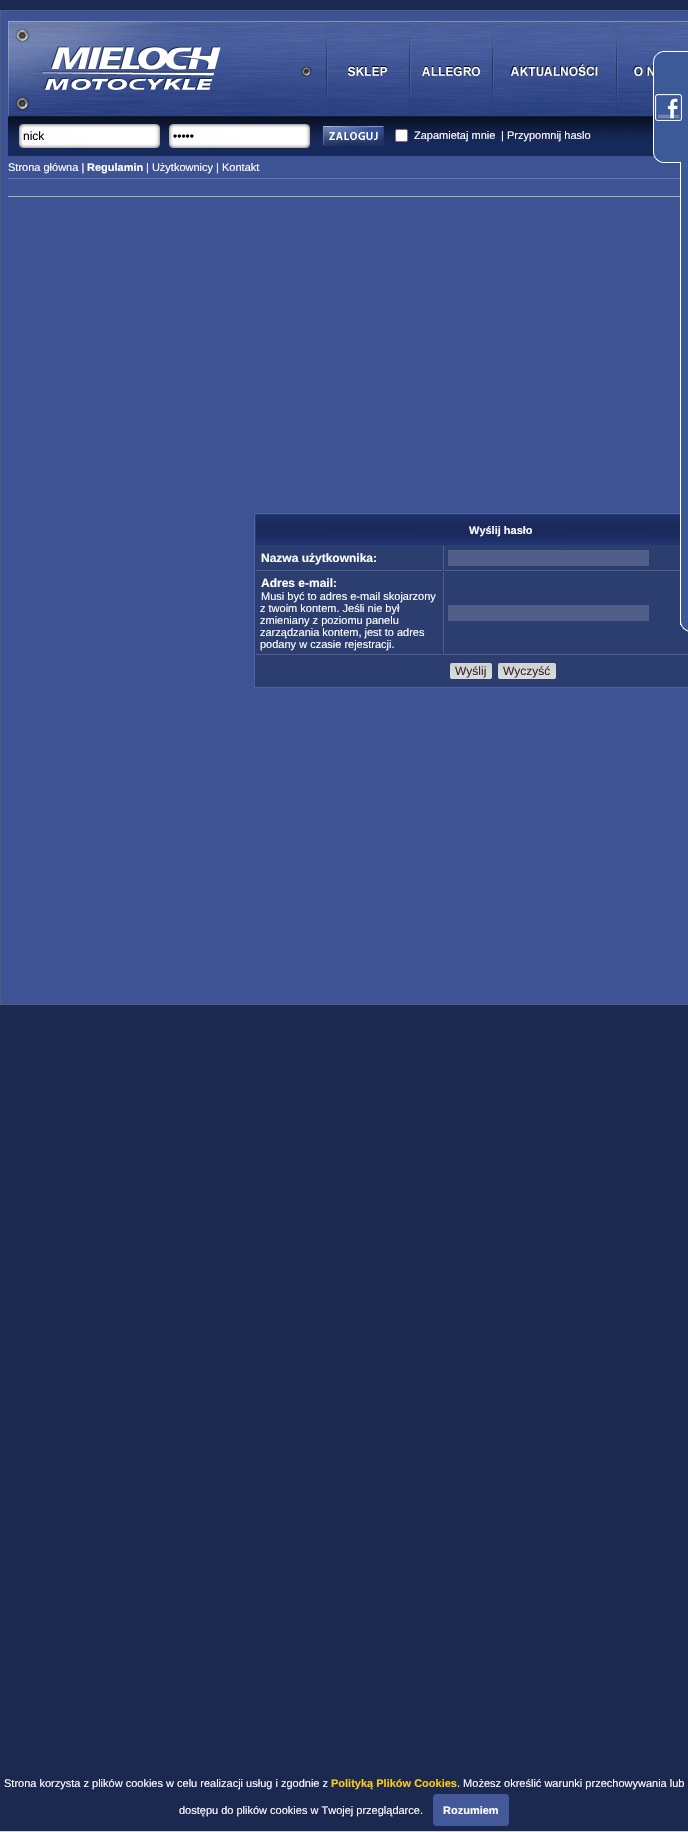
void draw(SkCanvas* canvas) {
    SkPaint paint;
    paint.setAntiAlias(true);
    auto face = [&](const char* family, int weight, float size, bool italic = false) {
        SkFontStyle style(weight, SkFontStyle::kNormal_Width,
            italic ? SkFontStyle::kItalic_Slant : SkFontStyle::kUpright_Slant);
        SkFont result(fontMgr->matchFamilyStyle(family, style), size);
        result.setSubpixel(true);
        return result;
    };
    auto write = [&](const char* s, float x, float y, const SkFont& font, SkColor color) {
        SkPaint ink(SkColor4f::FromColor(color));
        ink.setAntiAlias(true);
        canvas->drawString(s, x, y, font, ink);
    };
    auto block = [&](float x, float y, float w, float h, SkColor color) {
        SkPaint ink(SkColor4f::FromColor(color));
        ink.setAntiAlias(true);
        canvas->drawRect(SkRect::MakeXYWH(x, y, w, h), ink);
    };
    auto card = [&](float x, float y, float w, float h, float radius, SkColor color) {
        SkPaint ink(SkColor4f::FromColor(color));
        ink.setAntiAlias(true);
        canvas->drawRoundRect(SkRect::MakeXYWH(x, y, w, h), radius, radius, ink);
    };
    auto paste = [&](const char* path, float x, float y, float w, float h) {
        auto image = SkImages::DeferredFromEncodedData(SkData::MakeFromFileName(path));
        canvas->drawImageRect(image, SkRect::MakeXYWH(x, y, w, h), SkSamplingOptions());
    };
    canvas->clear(SkColorSetRGB(27, 40, 80));
    paint.setColor(SkColorSetRGB(61, 83, 148));
    canvas->drawRect(SkRect::MakeXYWH(0.5f, 10.5f, 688, 994), paint);
    paint.setStyle(SkPaint::kStroke_Style);
    paint.setStrokeWidth(1);
    paint.setColor(SkColorSetRGB(82, 94, 129));
    canvas->drawRect(SkRect::MakeXYWH(0.5f, 10.5f, 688, 994), paint);
    paste("pic1.png", 8, 21, 646, 135);
    paste("pic2.png", 300, 66, 13, 11);
    paste("pic3.png", 326, 31, 2, 77);
    paste("pic4.png", 328, 21, 81, 95);
    paste("pic5.png", 409, 33, 2, 74);
    paste("pic6.png", 411, 21, 81, 95);
    paste("pic5.png", 492, 33, 2, 74);
    paste("pic7.png", 495, 21, 119, 95);
    paste("pic8.png", 616, 32, 2, 75);
    paste("pic9.png", 618, 21, 70, 95);
    paste("pic10.png", 18, 124, 143, 24);
    auto kFont1 = face("Liberation Sans", 400, 12);
    write("nick", 23, 140, kFont1, SK_ColorBLACK);
    paste("pic10.png", 168, 124, 143, 24);
    write("•••••", 173, 140, kFont1, SK_ColorBLACK);
    paste("pic11.png", 323, 126, 61, 20);
    paint.setStyle(SkPaint::kFill_Style);
    paint.setColor(SK_ColorWHITE);
    canvas->drawRoundRect(SkRect::MakeXYWH(395.5f, 129.5f, 12, 12), 1.5f, 1.5f, paint);
    paint.setStyle(SkPaint::kStroke_Style);
    paint.setColor(SkColorSetRGB(118, 118, 118));
    canvas->drawRoundRect(SkRect::MakeXYWH(395.5f, 129.5f, 12, 12), 1.5f, 1.5f, paint);
    auto kFont2 = face("Liberation Sans", 400, 11);
    write("Zapamietaj mnie", 414, 139, kFont2, SK_ColorWHITE);
    write("| Przypomnij haslo", 501, 139, kFont2, SK_ColorWHITE);
    block(8, 178, 680, 1, SkColorSetRGB(95, 118, 183));
    write("Strona główna |", 8, 171, kFont2, SK_ColorWHITE);
    auto kFont3 = face("Liberation Sans", 700, 11);
    write("Regulamin", 87, 171, kFont3, SK_ColorWHITE);
    write("| Użytkownicy | Kontakt", 146, 171, kFont2, SK_ColorWHITE);
    block(8, 196, 680, 1, SkColorSetRGB(175, 175, 175));
    paint.setStyle(SkPaint::kFill_Style);
    paint.setColor(SkColorSetRGB(44, 62, 112));
    canvas->drawRect(SkRect::MakeXYWH(254.5f, 513.5f, 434, 174), paint);
    paint.setStyle(SkPaint::kStroke_Style);
    paint.setColor(SkColorSetRGB(76, 97, 162));
    canvas->drawRect(SkRect::MakeXYWH(254.5f, 513.5f, 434, 174), paint);
    paste("pic12.png", 256, 515, 424, 30);
    write("Wyślij hasło", 469, 534, kFont3, SK_ColorWHITE);
    block(256, 570, 186, 1, SkColorSetRGB(81, 94, 136));
    auto kFont4 = face("Liberation Sans", 700, 12);
    write("Nazwa użytkownika:", 261, 562, kFont4, SK_ColorWHITE);
    block(443, 570, 245, 1, SkColorSetRGB(81, 94, 136));
    block(443, 546, 1, 25, SkColorSetRGB(81, 94, 136));
    block(448, 550, 201, 16, SkColorSetRGB(81, 94, 136));
    block(256, 654, 186, 1, SkColorSetRGB(81, 94, 136));
    write("Adres e-mail:", 261, 587, kFont4, SK_ColorWHITE);
    write("Musi być to adres e-mail skojarzony", 261, 600, kFont2, SK_ColorWHITE);
    write("z twoim kontem. Jeśli nie był", 260, 612, kFont2, SK_ColorWHITE);
    write("zmieniany z poziomu panelu", 260, 624, kFont2, SK_ColorWHITE);
    write("zarządzania kontem, jest to adres", 260, 636, kFont2, SK_ColorWHITE);
    write("podany w czasie rejestracji.", 260, 648, kFont2, SK_ColorWHITE);
    block(443, 654, 245, 1, SkColorSetRGB(81, 94, 136));
    block(443, 572, 1, 83, SkColorSetRGB(81, 94, 136));
    block(448, 605, 201, 16, SkColorSetRGB(81, 94, 136));
    card(450, 663, 42, 16, 2, SkColorSetRGB(226, 226, 226));
    paste("pic13.png", 450, 663, 42, 16);
    write("Wyślij", 455, 675, kFont1, SkColorSetRGB(45, 45, 45));
    card(498, 663, 58, 16, 2, SkColorSetRGB(226, 226, 226));
    paste("pic14.png", 498, 663, 58, 16);
    write("Wyczyść", 503, 675, kFont1, SkColorSetRGB(45, 45, 45));
    paste("pic15.png", 653, 51, 35, 581);
    block(0, 1831, 688, 1, SkColorSetRGB(211, 208, 208));
    write("Strona korzysta z plików cookies w celu realizacji usług i zgodnie z", 4, 1787, kFont2, SK_ColorWHITE);
    write("Polityką Plików Cookies", 331, 1787, kFont3, SkColorSetRGB(255, 202, 21));
    write(". Możesz określić warunki przechowywania lub", 457, 1787, kFont2, SK_ColorWHITE);
    write("dostępu do plików cookies w Twojej przeglądarce.", 179, 1814, kFont2, SK_ColorWHITE);
    card(433, 1794, 76, 32, 4, SkColorSetRGB(68, 89, 154));
    write("Rozumiem", 443, 1814, kFont3, SK_ColorWHITE);
}
